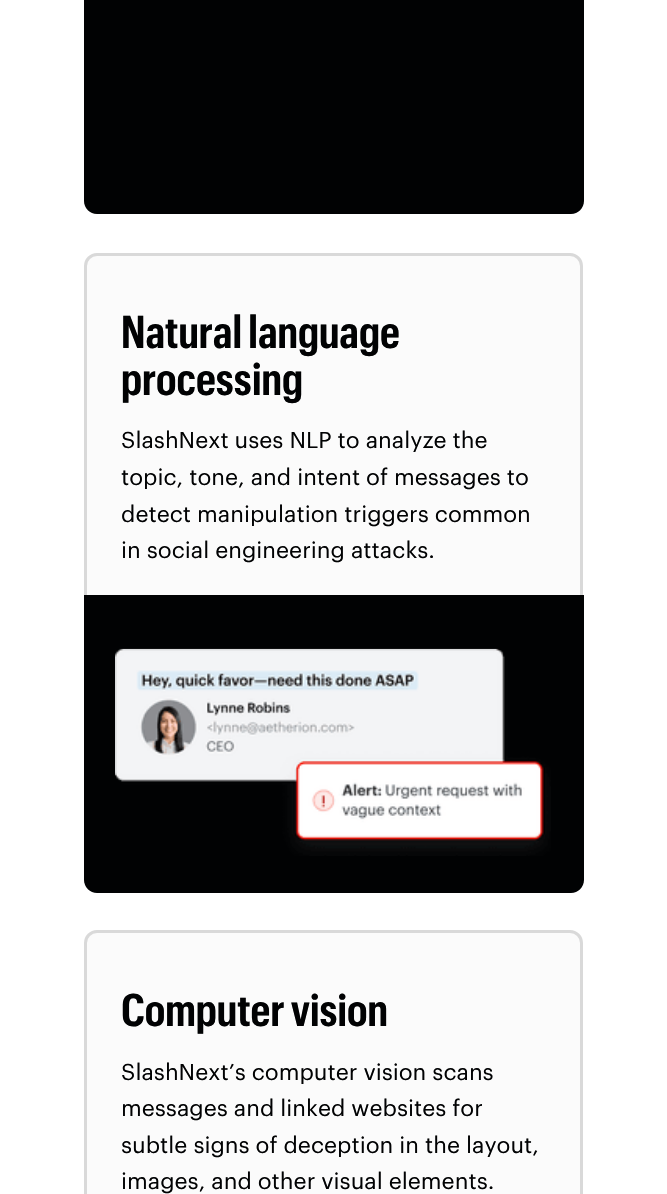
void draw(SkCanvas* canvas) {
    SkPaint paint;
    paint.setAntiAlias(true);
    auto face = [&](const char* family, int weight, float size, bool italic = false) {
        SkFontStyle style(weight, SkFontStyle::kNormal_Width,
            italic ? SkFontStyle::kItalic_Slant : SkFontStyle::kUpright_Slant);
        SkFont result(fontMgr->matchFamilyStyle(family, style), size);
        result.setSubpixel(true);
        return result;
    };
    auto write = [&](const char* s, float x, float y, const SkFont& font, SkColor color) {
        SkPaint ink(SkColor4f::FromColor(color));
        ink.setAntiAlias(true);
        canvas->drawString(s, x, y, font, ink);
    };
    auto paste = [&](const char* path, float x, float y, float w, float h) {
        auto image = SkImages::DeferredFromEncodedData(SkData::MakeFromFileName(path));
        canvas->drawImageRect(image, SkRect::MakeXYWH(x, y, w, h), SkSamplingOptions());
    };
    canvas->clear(SK_ColorWHITE);
    paint.setStyle(SkPaint::kStroke_Style);
    paint.setStrokeWidth(3);
    paint.setColor(SkColorSetRGB(217, 217, 217));
    canvas->drawRoundRect(SkRect::MakeXYWH(85.5f, -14.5f, 496, 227), 11.5f, 11.5f, paint);
    paint.setStyle(SkPaint::kFill_Style);
    paint.setColor(SkColorSetRGB(1, 2, 3));
    canvas->drawPath(SkPathBuilder().moveTo(84, -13).lineTo(584, -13).lineTo(584, 201).cubicTo(584, 208, 578, 214, 571, 214).lineTo(97, 214).cubicTo(90, 214, 84, 208, 84, 201).close().detach(), paint);
    paint.setColor(SkColorSetRGB(251, 251, 251));
    canvas->drawRoundRect(SkRect::MakeXYWH(85.5f, 254.5f, 496, 635), 11.5f, 11.5f, paint);
    paint.setStyle(SkPaint::kStroke_Style);
    paint.setColor(SkColorSetRGB(217, 217, 217));
    canvas->drawRoundRect(SkRect::MakeXYWH(85.5f, 254.5f, 496, 635), 11.5f, 11.5f, paint);
    auto kFont1 = face("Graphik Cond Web", 600, 45);
    write("Natural language", 121, 348, kFont1, SkColorSetRGB(1, 2, 3));
    write("processing", 121, 395, kFont1, SkColorSetRGB(1, 2, 3));
    auto kFont2 = face("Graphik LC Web", 400, 22.5f);
    write("SlashNext uses NLP to analyze the", 121, 448, kFont2, SkColorSetRGB(1, 2, 3));
    write("topic, tone, and intent of messages to", 121, 485, kFont2, SkColorSetRGB(1, 2, 3));
    write("detect manipulation triggers common", 121, 522, kFont2, SkColorSetRGB(1, 2, 3));
    write("in social engineering attacks.", 121, 558, kFont2, SkColorSetRGB(1, 2, 3));
    paint.setStyle(SkPaint::kFill_Style);
    paint.setColor(SkColorSetRGB(1, 2, 3));
    canvas->drawPath(SkPathBuilder().moveTo(84, 595).lineTo(584, 595).lineTo(584, 880).cubicTo(584, 887, 578, 893, 571, 893).lineTo(97, 893).cubicTo(90, 893, 84, 887, 84, 880).close().detach(), paint);
    paste("pic1.png", 115, 648, 436, 208);
    paint.setColor(SkColorSetRGB(251, 251, 251));
    canvas->drawRoundRect(SkRect::MakeXYWH(85.5f, 931.5f, 496, 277), 11.5f, 11.5f, paint);
    paint.setStyle(SkPaint::kStroke_Style);
    paint.setColor(SkColorSetRGB(217, 217, 217));
    canvas->drawRoundRect(SkRect::MakeXYWH(85.5f, 931.5f, 496, 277), 11.5f, 11.5f, paint);
    write("Computer vision", 121, 1026, kFont1, SkColorSetRGB(1, 2, 3));
    write("SlashNext’s computer vision scans", 121, 1080, kFont2, SkColorSetRGB(1, 2, 3));
    write("messages and linked websites for", 121, 1116, kFont2, SkColorSetRGB(1, 2, 3));
    write("subtle signs of deception in the layout,", 121, 1153, kFont2, SkColorSetRGB(1, 2, 3));
    write("images, and other visual elements.", 121, 1189, kFont2, SkColorSetRGB(1, 2, 3));
}
